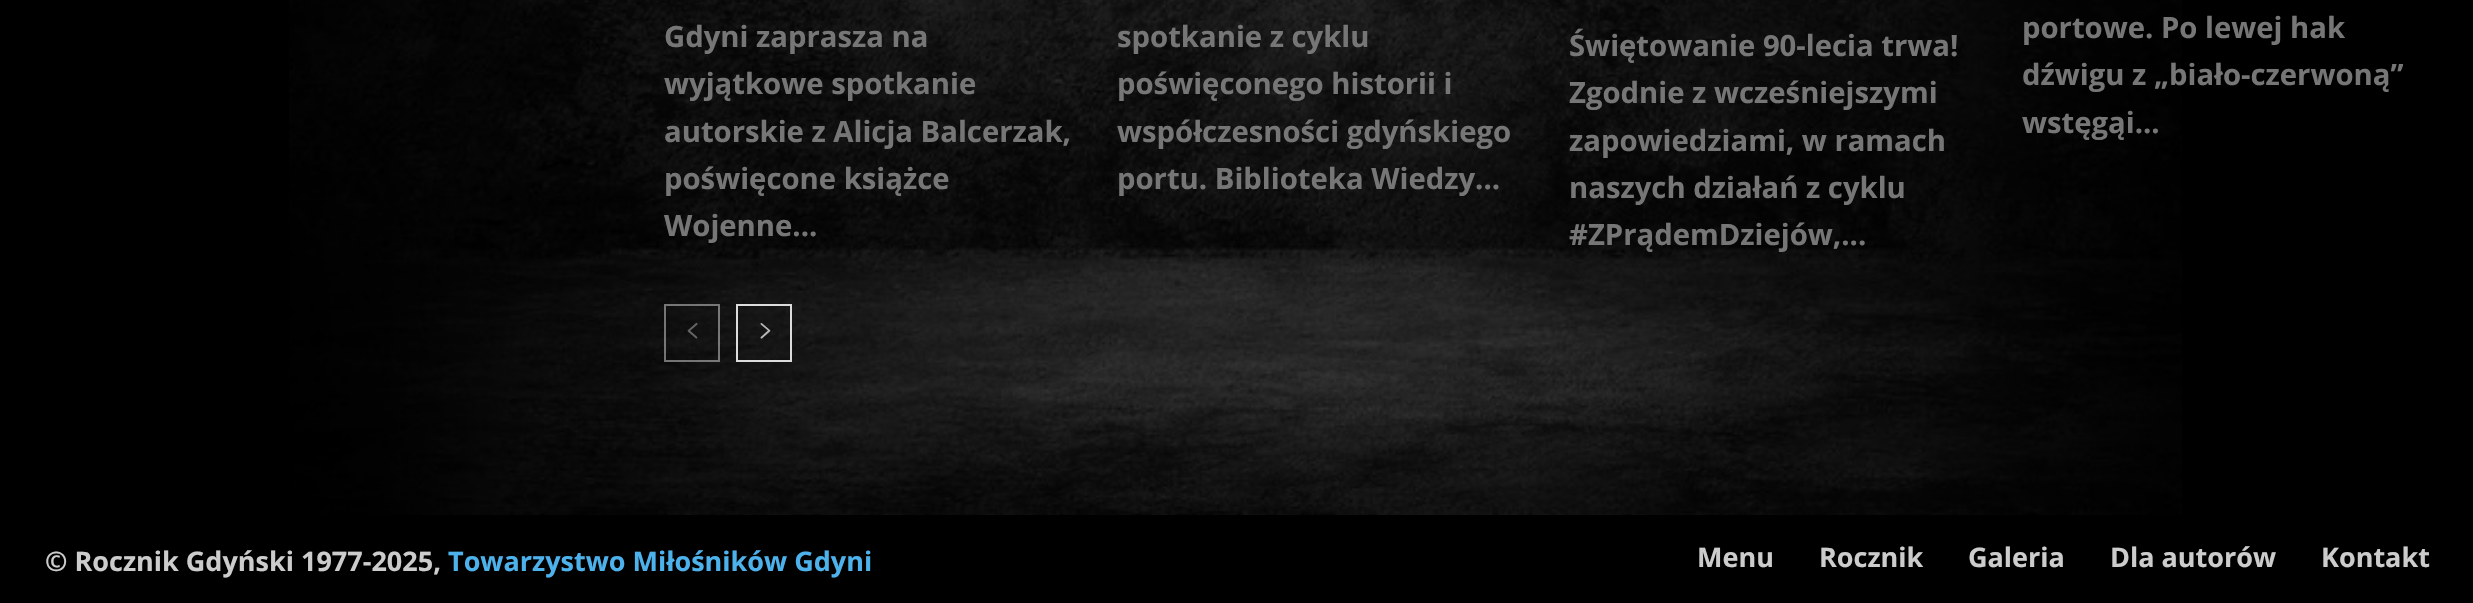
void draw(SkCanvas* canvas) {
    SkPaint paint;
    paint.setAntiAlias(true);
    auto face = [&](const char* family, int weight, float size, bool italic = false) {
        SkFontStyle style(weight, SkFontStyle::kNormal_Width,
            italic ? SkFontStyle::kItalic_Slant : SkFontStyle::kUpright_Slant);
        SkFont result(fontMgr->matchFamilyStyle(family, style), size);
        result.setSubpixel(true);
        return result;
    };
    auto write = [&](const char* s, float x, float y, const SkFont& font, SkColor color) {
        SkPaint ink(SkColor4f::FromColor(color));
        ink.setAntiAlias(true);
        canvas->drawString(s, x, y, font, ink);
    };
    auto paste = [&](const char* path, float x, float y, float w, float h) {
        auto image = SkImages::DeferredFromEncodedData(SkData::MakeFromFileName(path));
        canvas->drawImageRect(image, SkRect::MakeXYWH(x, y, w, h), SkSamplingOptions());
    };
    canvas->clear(SK_ColorBLACK);
    paste("pic1.png", 289, 0, 1893, 515);
    auto kFont1 = face("Open Sans", 700, 29.25f);
    write("Gdyni zaprasza na", 664, 47, kFont1, SkColorSetRGB(118, 118, 118));
    write("wyjątkowe spotkanie", 664, 94, kFont1, SkColorSetRGB(118, 118, 118));
    write("autorskie z Alicja Balcerzak,", 664, 142, kFont1, SkColorSetRGB(118, 118, 118));
    write("poświęcone książce", 664, 189, kFont1, SkColorSetRGB(118, 118, 118));
    write("Wojenne...", 664, 236, kFont1, SkColorSetRGB(118, 118, 118));
    write("spotkanie z cyklu", 1117, 47, kFont1, SkColorSetRGB(118, 118, 118));
    write("poświęconego historii i", 1117, 94, kFont1, SkColorSetRGB(118, 118, 118));
    write("współczesności gdyńskiego", 1117, 142, kFont1, SkColorSetRGB(118, 118, 118));
    write("portu. Biblioteka Wiedzy...", 1117, 189, kFont1, SkColorSetRGB(118, 118, 118));
    write("Świętowanie 90-lecia trwa!", 1569, 56, kFont1, SkColorSetRGB(118, 118, 118));
    write("Zgodnie z wcześniejszymi", 1569, 103, kFont1, SkColorSetRGB(118, 118, 118));
    write("zapowiedziami, w ramach", 1569, 151, kFont1, SkColorSetRGB(118, 118, 118));
    write("naszych działań z cyklu", 1569, 198, kFont1, SkColorSetRGB(118, 118, 118));
    write("#ZPrądemDziejów,...", 1569, 245, kFont1, SkColorSetRGB(118, 118, 118));
    write("portowe. Po lewej hak", 2022, 38, kFont1, SkColorSetRGB(118, 118, 118));
    write("dźwigu z „biało-czerwoną”", 2022, 85, kFont1, SkColorSetRGB(118, 118, 118));
    write("wstęgąi...", 2022, 133, kFont1, SkColorSetRGB(118, 118, 118));
    paint.setStyle(SkPaint::kStroke_Style);
    paint.setStrokeWidth(2);
    paint.setColor(SkColorSetARGB(128, 220, 220, 220));
    canvas->drawRect(SkRect::MakeXYWH(665, 305, 54, 56), paint);
    paste("pic2.png", 687, 322, 11, 17);
    paint.setColor(SkColorSetRGB(220, 220, 220));
    canvas->drawRect(SkRect::MakeXYWH(737, 305, 54, 56), paint);
    paste("pic3.png", 760, 323, 11, 16);
    auto kFont2 = face("Open Sans", 700, 27);
    write("© Rocznik Gdyński 1977-2025,", 45, 571, kFont2, SkColorSetRGB(204, 204, 204));
    write("Towarzystwo Miłośników Gdyni", 448, 571, kFont2, SkColorSetRGB(77, 178, 236));
    write("Menu", 1697, 567, kFont2, SkColorSetRGB(204, 204, 204));
    write("Rocznik", 1819, 567, kFont2, SkColorSetRGB(204, 204, 204));
    write("Galeria", 1968, 567, kFont2, SkColorSetRGB(204, 204, 204));
    write("Dla autorów", 2110, 567, kFont2, SkColorSetRGB(204, 204, 204));
    write("Kontakt", 2321, 567, kFont2, SkColorSetRGB(204, 204, 204));
}
